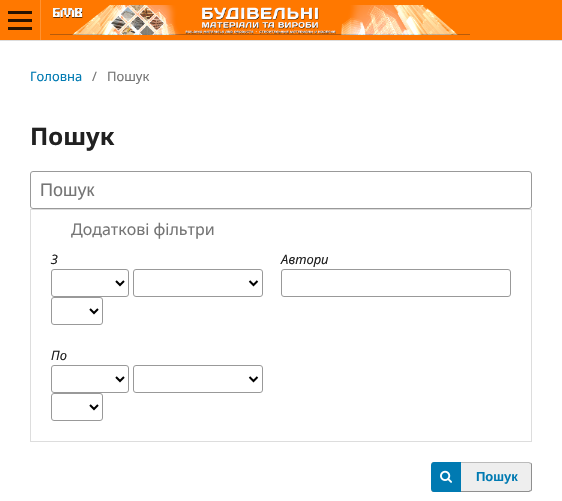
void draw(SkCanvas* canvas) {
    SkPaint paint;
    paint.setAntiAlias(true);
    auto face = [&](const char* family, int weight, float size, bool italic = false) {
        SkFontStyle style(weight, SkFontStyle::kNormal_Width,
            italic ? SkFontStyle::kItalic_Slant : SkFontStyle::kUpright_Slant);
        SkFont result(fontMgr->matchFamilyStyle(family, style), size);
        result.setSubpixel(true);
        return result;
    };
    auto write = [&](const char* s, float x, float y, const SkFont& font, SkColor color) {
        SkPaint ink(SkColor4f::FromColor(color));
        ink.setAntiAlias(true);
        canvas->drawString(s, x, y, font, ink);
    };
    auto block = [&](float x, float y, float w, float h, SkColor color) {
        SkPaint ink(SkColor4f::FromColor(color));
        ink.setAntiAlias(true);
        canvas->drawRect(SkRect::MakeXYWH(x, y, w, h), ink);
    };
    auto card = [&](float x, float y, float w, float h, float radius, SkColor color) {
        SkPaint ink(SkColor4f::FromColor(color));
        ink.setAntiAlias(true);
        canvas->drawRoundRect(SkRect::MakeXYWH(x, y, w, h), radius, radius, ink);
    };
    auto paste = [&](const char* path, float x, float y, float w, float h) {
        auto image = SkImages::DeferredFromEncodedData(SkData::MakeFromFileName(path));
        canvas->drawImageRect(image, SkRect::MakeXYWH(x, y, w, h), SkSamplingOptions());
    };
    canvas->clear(SK_ColorWHITE);
    block(0, 0, 562, 40, SkColorSetRGB(255, 120, 0));
    block(0, 40, 562, 1, SkColorSetRGB(221, 221, 221));
    block(40, 0, 1, 40, SkColorSetRGB(255, 147, 51));
    block(8, 27, 24, 3, SkColorSetRGB(41, 19, 0));
    block(8, 11, 24, 3, SkColorSetRGB(41, 19, 0));
    block(8, 19, 24, 3, SkColorSetRGB(41, 19, 0));
    paste("pic1.png", 50, 5, 420, 30);
    auto kFont1 = face("Noto Sans", 400, 13);
    write("Головна", 30, 81, kFont1, SkColorSetRGB(0, 122, 178));
    write("/", 92, 81, kFont1, SkColorSetRGB(117, 117, 117));
    write("Пошук", 107, 81, kFont1, SkColorSetRGB(117, 117, 117));
    auto kFont2 = face("Noto Sans", 700, 24);
    write("Пошук", 30, 145, kFont2, SkColorSetRGB(33, 33, 33));
    paint.setStyle(SkPaint::kStroke_Style);
    paint.setStrokeWidth(1);
    paint.setColor(SkColorSetRGB(153, 153, 153));
    canvas->drawRoundRect(SkRect::MakeXYWH(30.5f, 171.5f, 501, 37), 2.5f, 2.5f, paint);
    auto kFont3 = face("Liberation Sans", 400, 18);
    write("Пошук", 40, 196, kFont3, SkColorSetRGB(117, 117, 117));
    paint.setColor(SkColorSetRGB(221, 221, 221));
    canvas->drawRect(SkRect::MakeXYWH(30.5f, 209.5f, 501, 232), paint);
    auto kFont4 = face("Noto Sans", 400, 16);
    write("Додаткові фільтри", 71, 235, kFont4, SkColorSetRGB(117, 117, 117));
    auto kFont5 = face("Noto Sans", 400, 13, true);
    write("З", 51, 264, kFont5, SkColorSetRGB(33, 33, 33));
    paint.setColor(SkColorSetRGB(153, 153, 153));
    canvas->drawRoundRect(SkRect::MakeXYWH(51.5f, 269.5f, 77, 27), 2.5f, 2.5f, paint);
    paint.setStrokeWidth(2);
    paint.setColor(SK_ColorBLACK);
    canvas->drawPath(SkPathBuilder().moveTo(116, 281).lineTo(120, 285).lineTo(124, 281).detach(), paint);
    paint.setStrokeWidth(1);
    paint.setColor(SkColorSetRGB(153, 153, 153));
    canvas->drawRoundRect(SkRect::MakeXYWH(133.5f, 269.5f, 129, 27), 2.5f, 2.5f, paint);
    paint.setStrokeWidth(2);
    paint.setColor(SK_ColorBLACK);
    canvas->drawPath(SkPathBuilder().moveTo(249.5f, 281).lineTo(253.5f, 285).lineTo(257.5f, 281).detach(), paint);
    paint.setStrokeWidth(1);
    paint.setColor(SkColorSetRGB(153, 153, 153));
    canvas->drawRoundRect(SkRect::MakeXYWH(51.5f, 297.5f, 51, 27), 2.5f, 2.5f, paint);
    paint.setStrokeWidth(2);
    paint.setColor(SK_ColorBLACK);
    canvas->drawPath(SkPathBuilder().moveTo(90, 309).lineTo(94, 313).lineTo(98, 309).detach(), paint);
    write("По", 51, 360, kFont5, SkColorSetRGB(33, 33, 33));
    paint.setStrokeWidth(1);
    paint.setColor(SkColorSetRGB(153, 153, 153));
    canvas->drawRoundRect(SkRect::MakeXYWH(51.5f, 365.5f, 77, 27), 2.5f, 2.5f, paint);
    paint.setStrokeWidth(2);
    paint.setColor(SK_ColorBLACK);
    canvas->drawPath(SkPathBuilder().moveTo(116, 377).lineTo(120, 381).lineTo(124, 377).detach(), paint);
    paint.setStrokeWidth(1);
    paint.setColor(SkColorSetRGB(153, 153, 153));
    canvas->drawRoundRect(SkRect::MakeXYWH(133.5f, 365.5f, 129, 27), 2.5f, 2.5f, paint);
    paint.setStrokeWidth(2);
    paint.setColor(SK_ColorBLACK);
    canvas->drawPath(SkPathBuilder().moveTo(249.5f, 377).lineTo(253.5f, 381).lineTo(257.5f, 377).detach(), paint);
    paint.setStrokeWidth(1);
    paint.setColor(SkColorSetRGB(153, 153, 153));
    canvas->drawRoundRect(SkRect::MakeXYWH(51.5f, 393.5f, 51, 27), 2.5f, 2.5f, paint);
    paint.setStrokeWidth(2);
    paint.setColor(SK_ColorBLACK);
    canvas->drawPath(SkPathBuilder().moveTo(90, 405).lineTo(94, 409).lineTo(98, 405).detach(), paint);
    write("Автори", 281, 264, kFont5, SkColorSetRGB(33, 33, 33));
    paint.setStrokeWidth(1);
    paint.setColor(SkColorSetRGB(153, 153, 153));
    canvas->drawRoundRect(SkRect::MakeXYWH(281.5f, 269.5f, 229, 27), 2.5f, 2.5f, paint);
    card(431, 462, 101, 30, 3, SkColorSetRGB(238, 238, 238));
    paint.setStyle(SkPaint::kFill_Style);
    paint.setColor(SkColorSetRGB(187, 187, 187));
    canvas->drawPath(SkPathBuilder().moveTo(434, 462).cubicTo(432, 462, 431, 463, 431, 465).cubicTo(431, 464, 432, 463, 434, 463).lineTo(529, 463).lineTo(530, 464).lineTo(531, 463).lineTo(529, 462).close().detach(), paint);
    paint.setColor(SkColorSetARGB(102, 0, 0, 0));
    canvas->drawPath(SkPathBuilder().moveTo(530.5f, 490.5f).cubicTo(531, 490, 531, 489.5f, 531, 489).lineTo(531, 465).cubicTo(531, 464.5f, 531, 464, 530.5f, 463.5f).lineTo(531, 463).cubicTo(532, 463, 532, 464, 532, 465).lineTo(532, 489).cubicTo(532, 490, 532, 491, 531, 491).close().detach(), paint);
    canvas->drawPath(SkPathBuilder().moveTo(434, 492).lineTo(529, 492).lineTo(531, 491).lineTo(530, 490).lineTo(529, 491).lineTo(434, 491).cubicTo(432, 491, 431, 490, 431, 489).cubicTo(431, 491, 432, 492, 434, 492).close().detach(), paint);
    paint.setColor(SkColorSetRGB(0, 122, 178));
    canvas->drawPath(SkPathBuilder().moveTo(434, 462).lineTo(461, 462).lineTo(461, 492).lineTo(434, 492).cubicTo(432.5f, 492, 431, 490.5f, 431, 489).lineTo(431, 465).cubicTo(431, 463.5f, 432.5f, 462, 434, 462).close().detach(), paint);
    paste("pic2.png", 440, 470, 12, 13);
    auto kFont6 = face("Liberation Sans", 700, 13);
    write("Пошук", 476, 481, kFont6, SkColorSetRGB(0, 122, 178));
}
